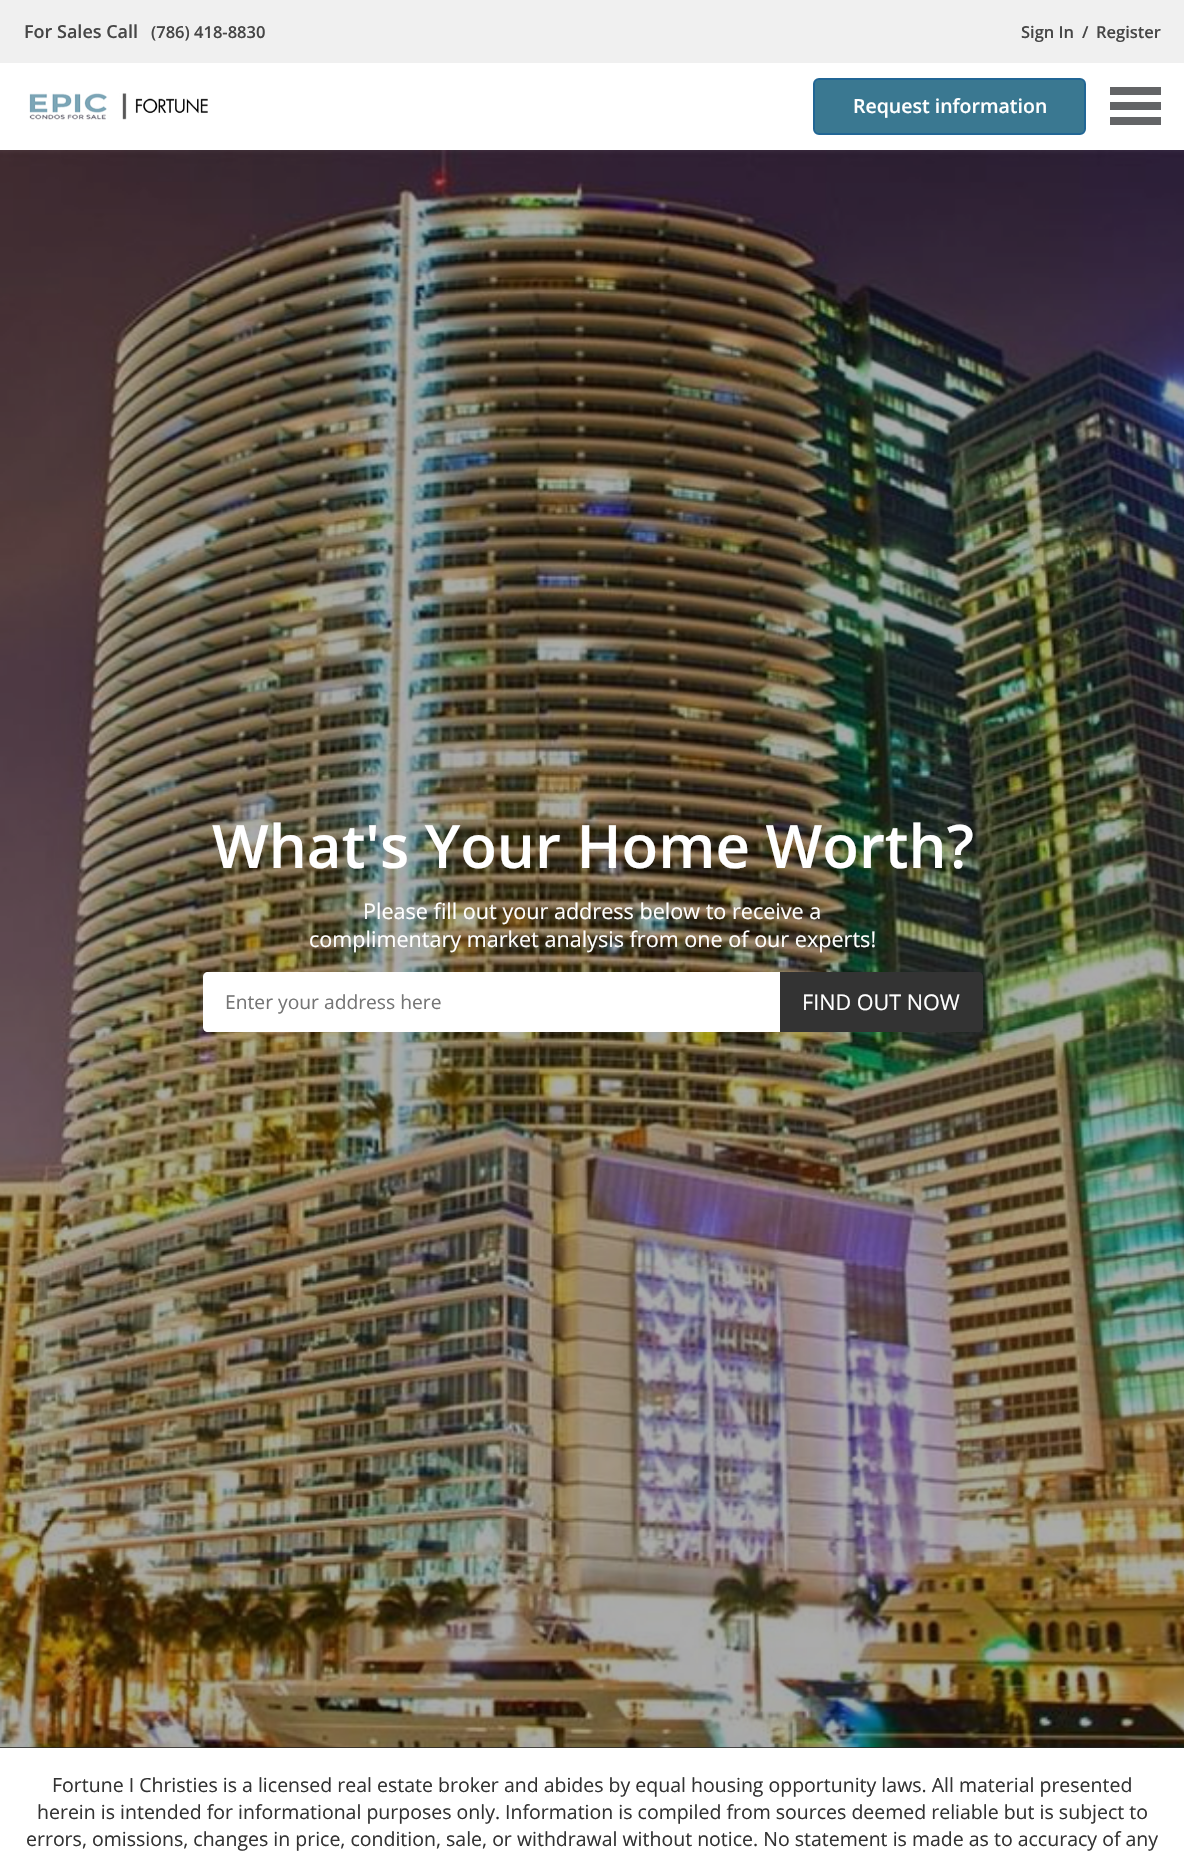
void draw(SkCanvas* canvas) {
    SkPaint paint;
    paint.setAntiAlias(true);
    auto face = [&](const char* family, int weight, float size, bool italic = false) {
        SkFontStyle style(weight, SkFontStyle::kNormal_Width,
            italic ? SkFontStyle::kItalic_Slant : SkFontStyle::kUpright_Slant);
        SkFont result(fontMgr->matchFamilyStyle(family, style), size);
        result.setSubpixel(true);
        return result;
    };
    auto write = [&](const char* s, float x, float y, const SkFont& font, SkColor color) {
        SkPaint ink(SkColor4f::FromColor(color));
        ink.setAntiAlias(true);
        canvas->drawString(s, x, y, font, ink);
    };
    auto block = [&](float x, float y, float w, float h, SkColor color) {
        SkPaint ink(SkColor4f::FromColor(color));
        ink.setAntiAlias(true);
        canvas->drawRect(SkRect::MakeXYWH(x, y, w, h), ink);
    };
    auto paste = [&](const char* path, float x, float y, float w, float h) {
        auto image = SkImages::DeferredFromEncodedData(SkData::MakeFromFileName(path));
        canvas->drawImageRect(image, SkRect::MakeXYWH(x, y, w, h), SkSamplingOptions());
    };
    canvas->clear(SK_ColorWHITE);
    block(0, 0, 1184, 63, SkColorSetRGB(240, 240, 240));
    auto kFont1 = face("Open Sans", 600, 18);
    write("For Sales Call", 24, 38, kFont1, SkColorSetRGB(70, 70, 70));
    auto kFont2 = face("Open Sans", 600, 16.5f);
    write("(786) 418-8830", 151, 38, kFont2, SkColorSetRGB(70, 70, 70));
    write("Sign In", 1021, 38, kFont2, SkColorSetRGB(70, 70, 70));
    write("/", 1082, 38, kFont2, SkColorSetRGB(70, 70, 70));
    write("Register", 1096, 38, kFont2, SkColorSetRGB(70, 70, 70));
    paste("pic1.png", 29, 93, 179, 27);
    paint.setColor(SkColorSetRGB(58, 120, 145));
    canvas->drawRoundRect(SkRect::MakeXYWH(814, 79, 271, 55), 5, 5, paint);
    paint.setStyle(SkPaint::kStroke_Style);
    paint.setStrokeWidth(2);
    paint.setColor(SkColorSetRGB(33, 102, 149));
    canvas->drawRoundRect(SkRect::MakeXYWH(814, 79, 271, 55), 5, 5, paint);
    auto kFont3 = face("Open Sans", 600, 19.5f);
    write("Request information", 853, 113, kFont3, SK_ColorWHITE);
    block(1110, 102, 51, 8, SkColorSetRGB(99, 100, 102));
    block(1110, 87, 51, 8, SkColorSetRGB(99, 100, 102));
    block(1110, 117, 51, 8, SkColorSetRGB(99, 100, 102));
    block(0, 1747, 1184, 1, SkColorSetRGB(34, 34, 34));
    paste("pic2.png", 0, 150, 1184, 1598);
    auto kFont4 = face("Open Sans", 600, 60);
    write("What's Your Home Worth?", 212, 868, kFont4, SK_ColorWHITE);
    auto kFont5 = face("Open Sans", 400, 21.6f);
    write("Please fill out your address below to receive a", 363, 919, kFont5, SK_ColorWHITE);
    write("complimentary market analysis from one of our experts!", 309, 947, kFont5, SK_ColorWHITE);
    paint.setStyle(SkPaint::kFill_Style);
    paint.setColor(SK_ColorWHITE);
    canvas->drawPath(SkPathBuilder().moveTo(208, 972).lineTo(780, 972).lineTo(780, 1032).lineTo(208, 1032).cubicTo(205, 1032, 203, 1030, 203, 1027).lineTo(203, 977).cubicTo(203, 974, 205, 972, 208, 972).close().detach(), paint);
    auto kFont6 = face("Open Sans", 400, 19.25f);
    write("Enter your address here", 225, 1009, kFont6, SkColorSetRGB(117, 117, 117));
    paint.setColor(SkColorSetRGB(51, 51, 51));
    canvas->drawPath(SkPathBuilder().moveTo(780, 972).lineTo(978, 972).cubicTo(981, 972, 983, 974, 983, 977).lineTo(983, 1027).cubicTo(983, 1030, 981, 1032, 978, 1032).lineTo(780, 1032).close().detach(), paint);
    write("FIND OUT NOW", 802, 1010, kFont5, SK_ColorWHITE);
    auto kFont7 = face("Open Sans", 400, 19.5f);
    write("Fortune I Christies is a licensed real estate broker and abides by equal housing opportunity laws. All material presented", 52, 1792, kFont7, SkColorSetRGB(51, 51, 51));
    write("herein is intended for informational purposes only. Information is compiled from sources deemed reliable but is subject to", 37, 1819, kFont7, SkColorSetRGB(51, 51, 51));
    write("errors, omissions, changes in price, condition, sale, or withdrawal without notice. No statement is made as to accuracy of any", 26, 1846, kFont7, SkColorSetRGB(51, 51, 51));
}
